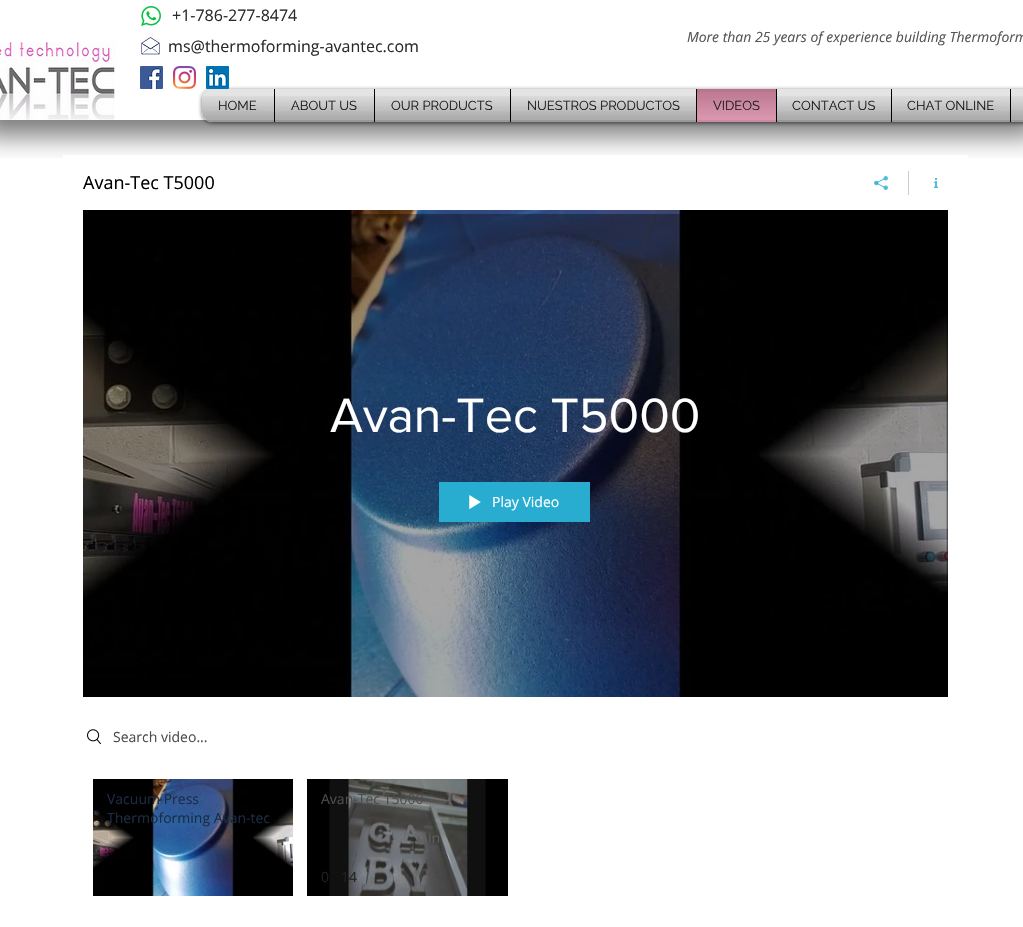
void draw(SkCanvas* canvas) {
    SkPaint paint;
    paint.setAntiAlias(true);
    auto face = [&](const char* family, int weight, float size, bool italic = false) {
        SkFontStyle style(weight, SkFontStyle::kNormal_Width,
            italic ? SkFontStyle::kItalic_Slant : SkFontStyle::kUpright_Slant);
        SkFont result(fontMgr->matchFamilyStyle(family, style), size);
        result.setSubpixel(true);
        return result;
    };
    auto write = [&](const char* s, float x, float y, const SkFont& font, SkColor color) {
        SkPaint ink(SkColor4f::FromColor(color));
        ink.setAntiAlias(true);
        canvas->drawString(s, x, y, font, ink);
    };
    auto block = [&](float x, float y, float w, float h, SkColor color) {
        SkPaint ink(SkColor4f::FromColor(color));
        ink.setAntiAlias(true);
        canvas->drawRect(SkRect::MakeXYWH(x, y, w, h), ink);
    };
    auto card = [&](float x, float y, float w, float h, float radius, SkColor color) {
        SkPaint ink(SkColor4f::FromColor(color));
        ink.setAntiAlias(true);
        canvas->drawRoundRect(SkRect::MakeXYWH(x, y, w, h), radius, radius, ink);
    };
    auto paste = [&](const char* path, float x, float y, float w, float h) {
        auto image = SkImages::DeferredFromEncodedData(SkData::MakeFromFileName(path));
        canvas->drawImageRect(image, SkRect::MakeXYWH(x, y, w, h), SkSamplingOptions());
    };
    canvas->clear(SK_ColorWHITE);
    canvas->save();
    canvas->clipRect(SkRect::MakeXYWH(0, 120, 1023, 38));
    paint.setColor(SkColorSetARGB(133, 0, 0, 0));
    paint.setMaskFilter(SkMaskFilter::MakeBlur(kNormal_SkBlurStyle, 12.5f));
    canvas->drawRect(SkRect::MakeXYWH(-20, -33, 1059, 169), paint);
    paint.setMaskFilter(nullptr);
    canvas->restore();
    paste("pic1.png", 141, 6, 20, 20);
    auto kFont1 = face("Open Sans", 400, 16);
    write("+1-786-277-8474", 172, 21, kFont1, SkColorSetRGB(46, 41, 41));
    paste("pic2.png", 0, 42, 115, 78);
    paste("pic3.png", 141, 37, 19, 18);
    write("ms@thermoforming-avantec.com", 168, 52, kFont1, SkColorSetRGB(46, 41, 41));
    auto kFont2 = face("Open Sans", 400, 14, true);
    write("More than 25 years of experience building Thermoform", 687, 42, kFont2, SkColorSetRGB(85, 85, 85));
    paste("pic4.png", 140, 66, 23, 23);
    canvas->save();
    canvas->clipPath(SkPathBuilder(SkPathFillType::kEvenOdd).moveTo(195, 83).lineTo(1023, 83).lineTo(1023, 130).lineTo(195, 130).close().moveTo(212, 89).lineTo(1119, 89).cubicTo(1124.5f, 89, 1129, 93.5f, 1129, 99).lineTo(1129, 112).cubicTo(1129, 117.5f, 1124.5f, 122, 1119, 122).lineTo(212, 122).cubicTo(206.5f, 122, 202, 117.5f, 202, 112).lineTo(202, 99).cubicTo(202, 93.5f, 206.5f, 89, 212, 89).close().detach(), true);
    paint.setColor(SkColorSetARGB(153, 0, 0, 0));
    paint.setMaskFilter(SkMaskFilter::MakeBlur(kNormal_SkBlurStyle, 2));
    canvas->drawRoundRect(SkRect::MakeXYWH(202, 90, 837, 33), 10, 10, paint);
    paint.setMaskFilter(nullptr);
    canvas->restore();
    paste("pic5.png", 173, 66, 23, 23);
    paste("pic6.png", 206, 66, 23, 23);
    card(202, 89, 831, 33, 10, SkColorSetARGB(138, 211, 211, 211));
    paste("pic7.png", 203, 89, 820, 8);
    paste("pic8.png", 202, 96, 821, 26);
    paint.setColor(SkColorSetARGB(138, 211, 211, 211));
    canvas->drawPath(SkPathBuilder().moveTo(212, 89).lineTo(274, 89).lineTo(274, 122).lineTo(212, 122).cubicTo(206.5f, 122, 202, 117.5f, 202, 112).lineTo(202, 99).cubicTo(202, 93.5f, 206.5f, 89, 212, 89).close().detach(), paint);
    auto kFont3 = face("Raleway", 400, 13);
    write("HOME", 218, 110, kFont3, SK_ColorBLACK);
    paste("pic9.png", 202, 89, 72, 22);
    paste("pic10.png", 202, 96, 72, 26);
    block(275, 89, 99, 33, SkColorSetARGB(138, 211, 211, 211));
    block(274, 89, 1, 33, SK_ColorBLACK);
    write("ABOUT US", 291, 110, kFont3, SK_ColorBLACK);
    paste("pic11.png", 275, 89, 99, 22);
    paste("pic12.png", 275, 96, 99, 26);
    block(375, 89, 135, 33, SkColorSetARGB(138, 211, 211, 211));
    block(374, 89, 1, 33, SK_ColorBLACK);
    write("OUR PRODUCTS", 391, 110, kFont3, SK_ColorBLACK);
    paste("pic13.png", 375, 89, 135, 22);
    paste("pic14.png", 375, 96, 135, 26);
    block(511, 89, 185, 33, SkColorSetARGB(138, 211, 211, 211));
    block(510, 89, 1, 33, SK_ColorBLACK);
    write("NUESTROS PRODUCTOS", 527, 110, kFont3, SK_ColorBLACK);
    paste("pic15.png", 511, 89, 185, 22);
    paste("pic16.png", 511, 96, 185, 26);
    block(697, 89, 79, 33, SkColorSetARGB(173, 212, 91, 135));
    block(696, 89, 1, 33, SK_ColorBLACK);
    write("VIDEOS", 713, 110, kFont3, SK_ColorBLACK);
    paste("pic17.png", 697, 89, 79, 26);
    paste("pic18.png", 697, 91, 79, 31);
    block(777, 89, 114, 33, SkColorSetARGB(138, 211, 211, 211));
    block(776, 89, 1, 33, SK_ColorBLACK);
    write("CONTACT US", 792, 110, kFont3, SK_ColorBLACK);
    paste("pic19.png", 777, 89, 114, 22);
    paste("pic20.png", 777, 96, 114, 26);
    block(892, 89, 118, 33, SkColorSetARGB(138, 211, 211, 211));
    block(891, 89, 1, 33, SK_ColorBLACK);
    write("CHAT ONLINE", 907, 110, kFont3, SK_ColorBLACK);
    paste("pic21.png", 892, 89, 118, 22);
    paste("pic22.png", 892, 96, 118, 26);
    block(1011, 89, 12, 33, SkColorSetARGB(138, 211, 211, 211));
    block(1010, 89, 1, 33, SK_ColorBLACK);
    paste("pic23.png", 1011, 89, 12, 21);
    paste("pic24.png", 1011, 96, 12, 26);
    block(63, 155, 905, 7, SK_ColorWHITE);
    auto kFont4 = face("Open Sans", 400, 18);
    write("Avan-Tec T5000", 83, 189, kFont4, SK_ColorBLACK);
    block(908, 171, 1, 24, SkColorSetRGB(204, 204, 204));
    paste("pic25.png", 874, 176, 14, 14);
    paste("pic26.png", 934, 178, 4, 10);
    paste("pic27.png", 83, 210, 865, 4);
    paste("pic28.png", 83, 214, 865, 483);
    auto kFont5 = face("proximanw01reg", 400, 50);
    write("Avan-Tec T5000", 330, 432, kFont5, SK_ColorWHITE);
    block(439, 482, 151, 40, SkColorSetRGB(40, 173, 209));
    paste("pic29.png", 469, 495, 12, 14);
    auto kFont6 = face("Open Sans", 400, 14);
    write("Play Video", 492, 507, kFont6, SK_ColorWHITE);
    paste("pic30.png", 87, 729, 14, 16);
    write("Search video...", 113, 742, kFont6, SkColorSetRGB(77, 77, 77));
    paste("pic31.png", 93, 779, 200, 117);
    write("Vacuum Press", 107, 804, kFont6, SkColorSetRGB(28, 43, 67));
    write("Thermoforming Avan-tec", 107, 823, kFont6, SkColorSetRGB(28, 43, 67));
    block(307, 779, 201, 117, SK_ColorBLACK);
    paste("pic32.png", 329, 779, 157, 117);
    paste("pic33.png", 348, 779, 119, 117);
    write("Avan-Tec T5000", 321, 804, kFont6, SkColorSetRGB(77, 77, 77));
    write("in", 428, 843, kFont6, SkColorSetRGB(92, 93, 94));
    write("0", 321, 882, kFont6, SkColorSetRGB(31, 32, 33));
    write("14", 341, 882, kFont6, SkColorSetRGB(31, 32, 33));
}
